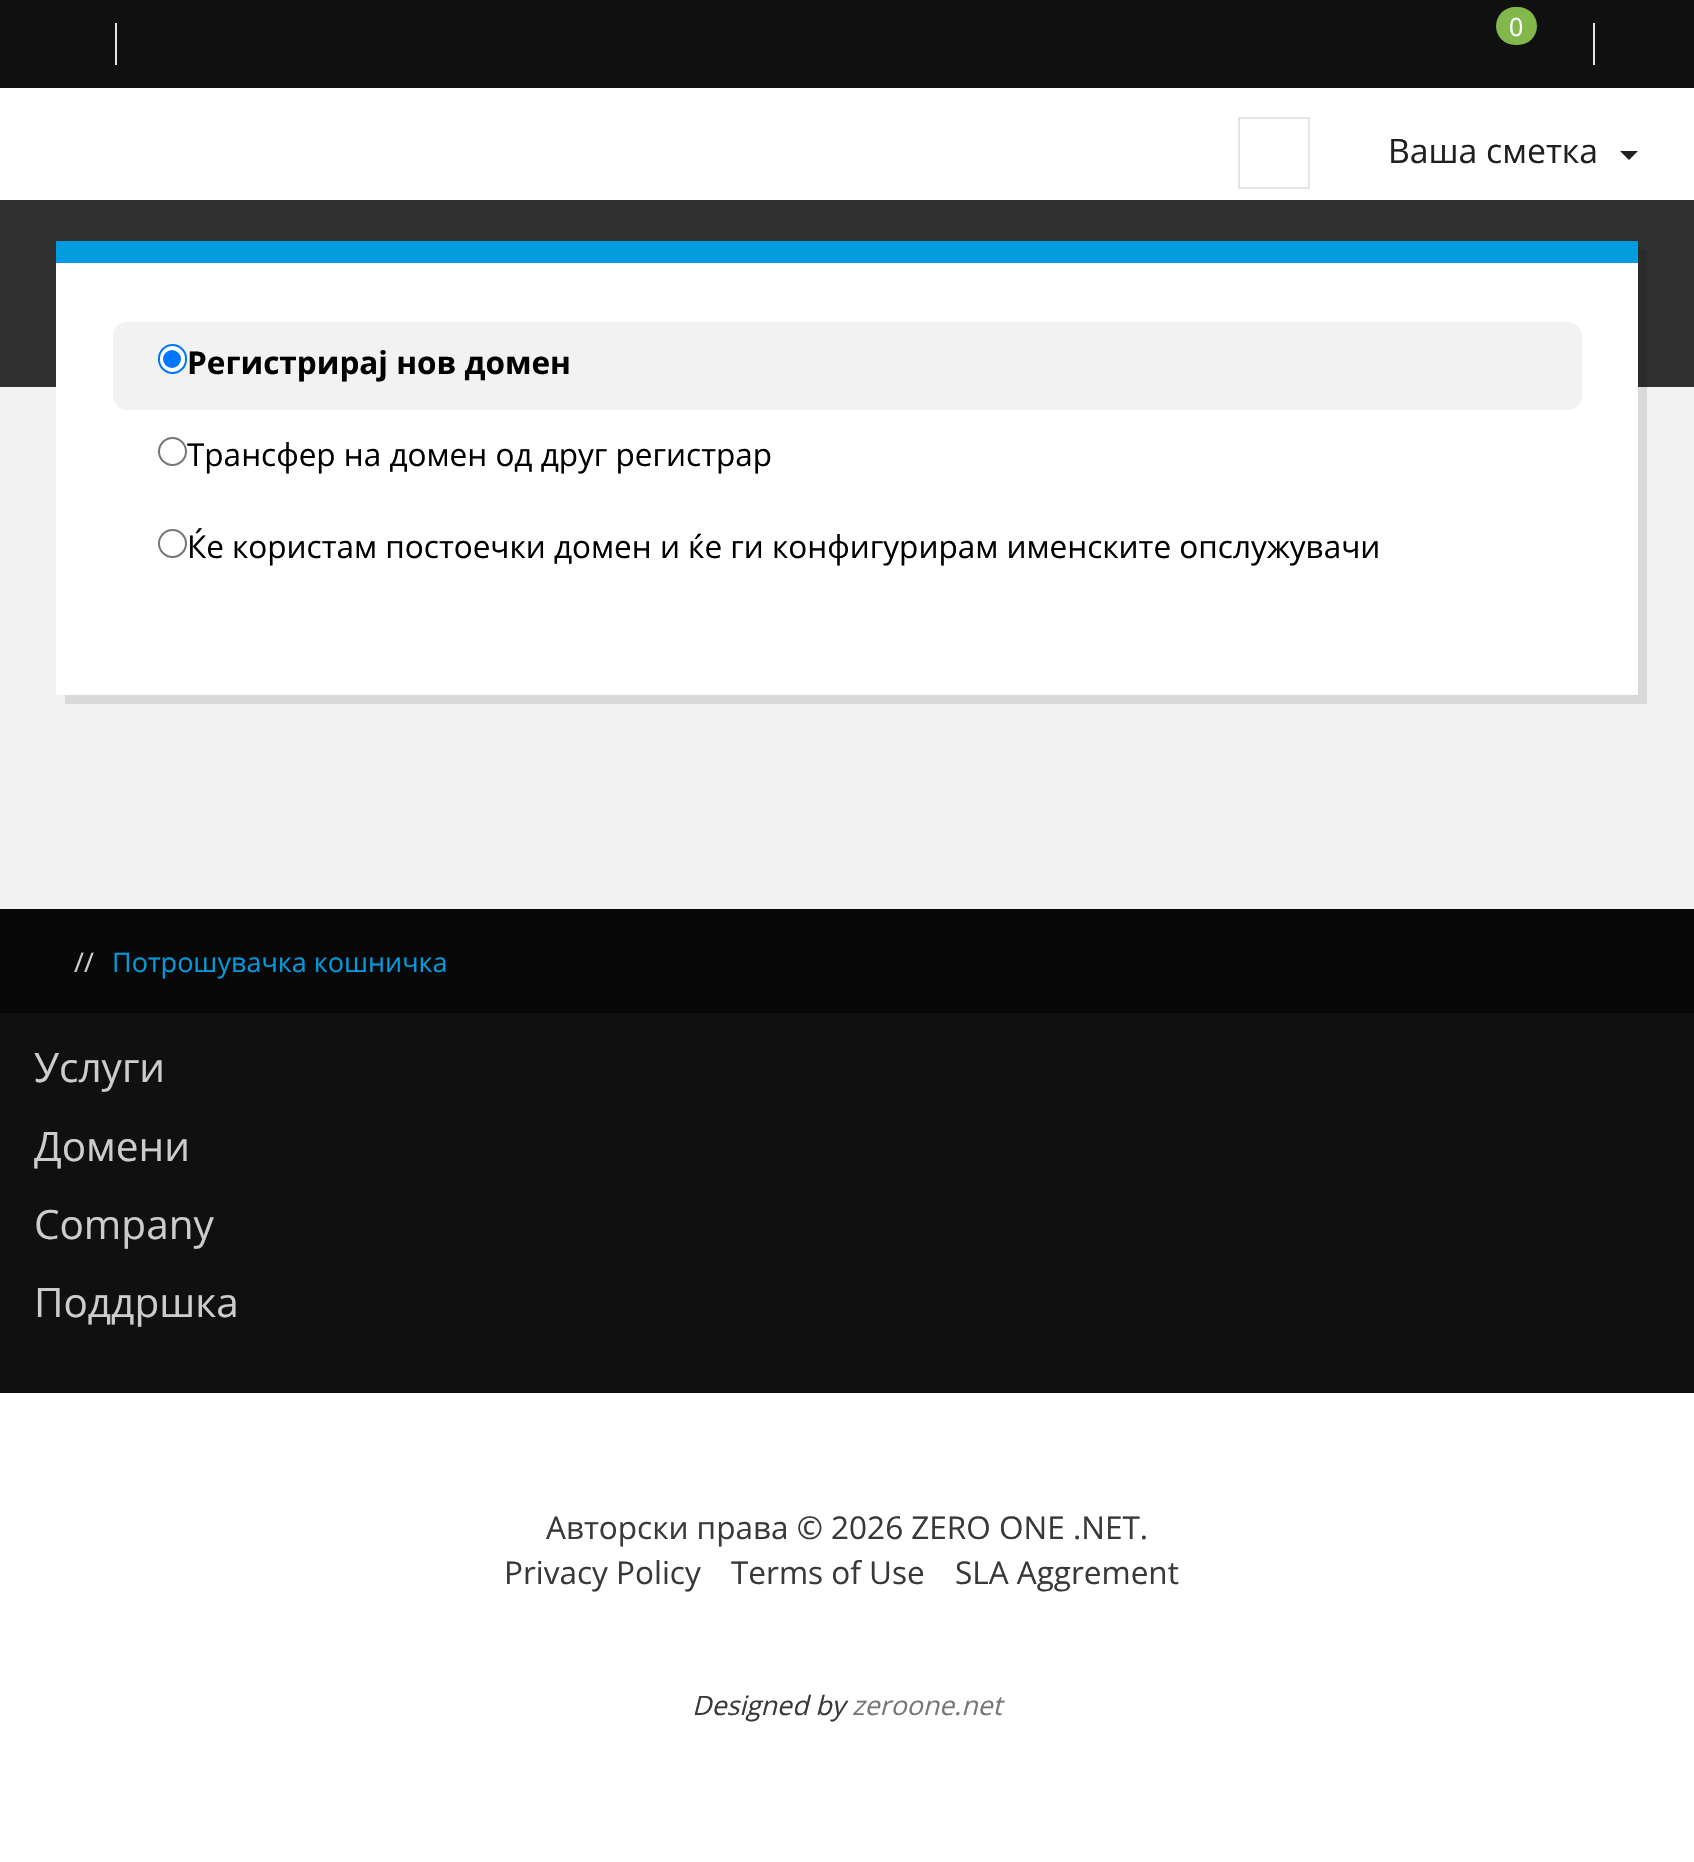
void draw(SkCanvas* canvas) {
    SkPaint paint;
    paint.setAntiAlias(true);
    auto face = [&](const char* family, int weight, float size, bool italic = false) {
        SkFontStyle style(weight, SkFontStyle::kNormal_Width,
            italic ? SkFontStyle::kItalic_Slant : SkFontStyle::kUpright_Slant);
        SkFont result(fontMgr->matchFamilyStyle(family, style), size);
        result.setSubpixel(true);
        return result;
    };
    auto write = [&](const char* s, float x, float y, const SkFont& font, SkColor color) {
        SkPaint ink(SkColor4f::FromColor(color));
        ink.setAntiAlias(true);
        canvas->drawString(s, x, y, font, ink);
    };
    auto block = [&](float x, float y, float w, float h, SkColor color) {
        SkPaint ink(SkColor4f::FromColor(color));
        ink.setAntiAlias(true);
        canvas->drawRect(SkRect::MakeXYWH(x, y, w, h), ink);
    };
    auto card = [&](float x, float y, float w, float h, float radius, SkColor color) {
        SkPaint ink(SkColor4f::FromColor(color));
        ink.setAntiAlias(true);
        canvas->drawRoundRect(SkRect::MakeXYWH(x, y, w, h), radius, radius, ink);
    };
    canvas->clear(SK_ColorWHITE);
    block(0, 0, 1694, 88, SkColorSetRGB(16, 16, 16));
    block(115, 23, 2, 42, SkColorSetRGB(229, 229, 229));
    block(1593, 23, 2, 42, SkColorSetRGB(229, 229, 229));
    card(1496, 7, 41, 38, 19, SkColorSetRGB(130, 183, 76));
    auto kFont1 = face("Open Sans", 400, 25);
    write("0", 1509, 36, kFont1, SK_ColorWHITE);
    paint.setStyle(SkPaint::kStroke_Style);
    paint.setStrokeWidth(2);
    paint.setColor(SkColorSetRGB(229, 229, 229));
    canvas->drawRect(SkRect::MakeXYWH(1239, 118, 70, 70), paint);
    auto kFont2 = face("Open Sans", 400, 33.75f);
    write("Ваша сметка", 1388, 163, kFont2, SkColorSetRGB(32, 32, 32));
    paint.setStyle(SkPaint::kFill_Style);
    paint.setColor(SkColorSetRGB(32, 32, 32));
    canvas->drawPath(SkPathBuilder().moveTo(1620, 151).lineTo(1638, 151).lineTo(1629, 160).close().detach(), paint);
    block(0, 387, 1694, 522, SkColorSetRGB(242, 242, 242));
    block(0, 200, 1694, 187, SkColorSetRGB(48, 48, 48));
    paint.setColor(SkColorSetARGB(26, 0, 0, 0));
    canvas->drawPath(SkPathBuilder().moveTo(65, 695).lineTo(65, 704).lineTo(1647, 704).lineTo(1647, 250).lineTo(1638, 250).lineTo(1638, 695).close().detach(), paint);
    block(56, 263, 1582, 432, SK_ColorWHITE);
    block(56, 241, 1582, 22, SkColorSetRGB(0, 156, 222));
    card(113, 322, 1469, 88, 14, SkColorSetRGB(242, 242, 242));
    paint.setColor(SK_ColorWHITE);
    canvas->drawRoundRect(SkRect::MakeXYWH(159, 345, 27, 28), 13.5f, 13.5f, paint);
    paint.setStyle(SkPaint::kStroke_Style);
    paint.setColor(SkColorSetRGB(0, 117, 255));
    canvas->drawRoundRect(SkRect::MakeXYWH(159, 345, 27, 28), 13.5f, 13.5f, paint);
    paint.setStyle(SkPaint::kFill_Style);
    canvas->drawCircle(172, 359, 9, paint);
    auto kFont3 = face("Open Sans", 700, 31.5f);
    write("Регистрирај нов домен", 187, 374, kFont3, SK_ColorBLACK);
    paint.setStyle(SkPaint::kStroke_Style);
    paint.setColor(SkColorSetRGB(118, 118, 118));
    canvas->drawCircle(172.5f, 451.5f, 13.5f, paint);
    auto kFont4 = face("Open Sans", 400, 31.5f);
    write("Трансфер на домен од друг регистрар", 187, 466, kFont4, SK_ColorBLACK);
    canvas->drawCircle(172.5f, 543.5f, 13.5f, paint);
    write("Ќе користам постоечки домен и ќе ги конфигурирам именските опслужувачи", 187, 558, kFont4, SK_ColorBLACK);
    block(0, 909, 1694, 104, SkColorSetRGB(8, 8, 8));
    auto kFont5 = face("Open Sans", 400, 27);
    write("//", 74, 972, kFont5, SkColorSetRGB(204, 204, 204));
    write("Потрошувачка кошничка", 112, 972, kFont5, SkColorSetRGB(0, 156, 222));
    block(0, 1013, 1694, 380, SkColorSetRGB(16, 16, 16));
    auto kFont6 = face("Open Sans", 400, 40.5f);
    write("Услуги", 34, 1082, kFont6, SkColorSetRGB(204, 204, 204));
    write("Домени", 34, 1161, kFont6, SkColorSetRGB(204, 204, 204));
    write("Company", 34, 1239, kFont6, SkColorSetRGB(204, 204, 204));
    write("Поддршка", 34, 1317, kFont6, SkColorSetRGB(204, 204, 204));
    write("Aвторски права © 2026 ZERO ONE .NET.", 546, 1539, kFont4, SkColorSetRGB(57, 57, 57));
    write("Privacy Policy", 504, 1584, kFont4, SkColorSetRGB(57, 57, 57));
    write("Terms of Use", 731, 1584, kFont4, SkColorSetRGB(57, 57, 57));
    write("SLA Aggrement", 955, 1584, kFont4, SkColorSetRGB(57, 57, 57));
    auto kFont7 = face("Open Sans", 400, 26.75f, true);
    write("Designed by", 692, 1715, kFont7, SkColorSetRGB(57, 57, 57));
    write("zeroone.net", 852, 1715, kFont7, SkColorSetRGB(119, 119, 119));
}
